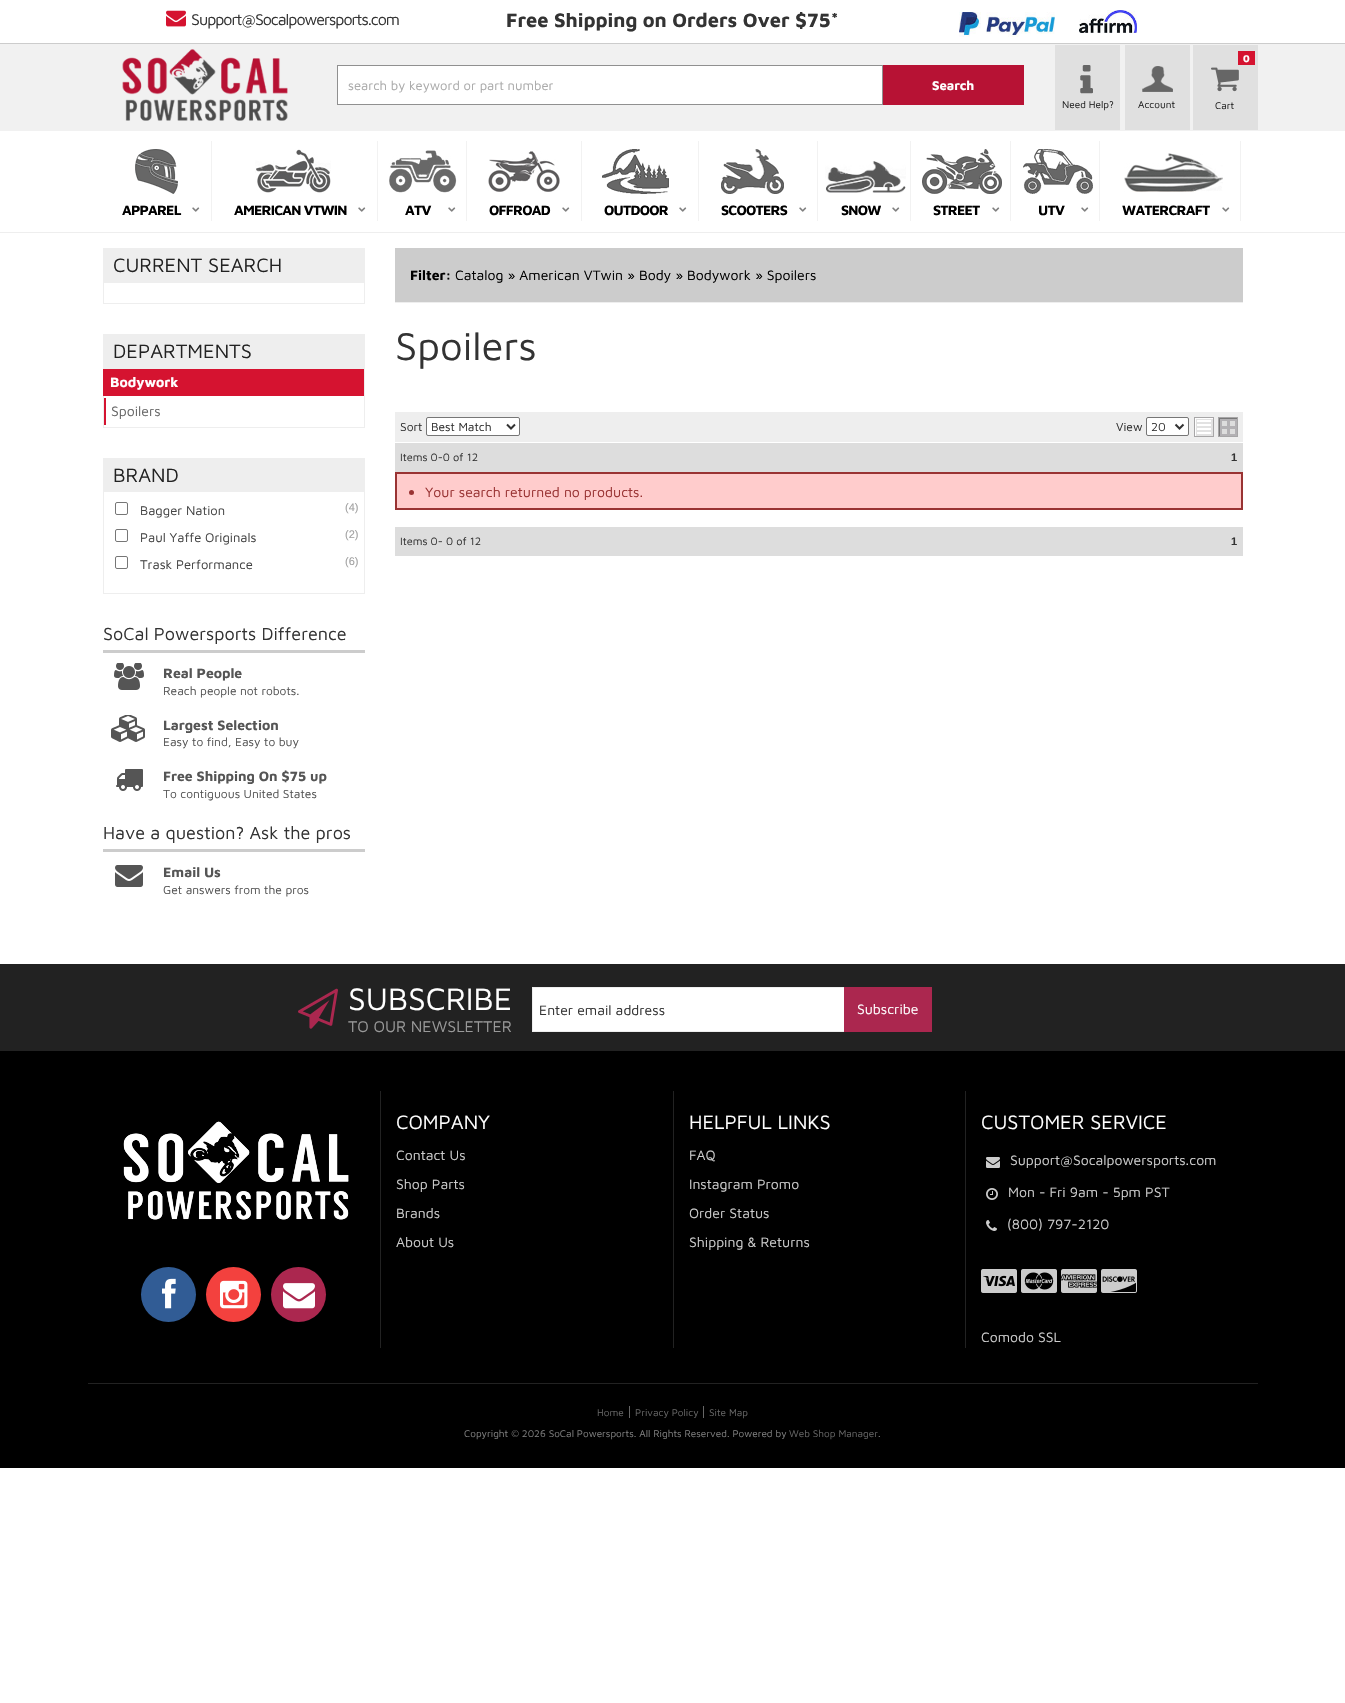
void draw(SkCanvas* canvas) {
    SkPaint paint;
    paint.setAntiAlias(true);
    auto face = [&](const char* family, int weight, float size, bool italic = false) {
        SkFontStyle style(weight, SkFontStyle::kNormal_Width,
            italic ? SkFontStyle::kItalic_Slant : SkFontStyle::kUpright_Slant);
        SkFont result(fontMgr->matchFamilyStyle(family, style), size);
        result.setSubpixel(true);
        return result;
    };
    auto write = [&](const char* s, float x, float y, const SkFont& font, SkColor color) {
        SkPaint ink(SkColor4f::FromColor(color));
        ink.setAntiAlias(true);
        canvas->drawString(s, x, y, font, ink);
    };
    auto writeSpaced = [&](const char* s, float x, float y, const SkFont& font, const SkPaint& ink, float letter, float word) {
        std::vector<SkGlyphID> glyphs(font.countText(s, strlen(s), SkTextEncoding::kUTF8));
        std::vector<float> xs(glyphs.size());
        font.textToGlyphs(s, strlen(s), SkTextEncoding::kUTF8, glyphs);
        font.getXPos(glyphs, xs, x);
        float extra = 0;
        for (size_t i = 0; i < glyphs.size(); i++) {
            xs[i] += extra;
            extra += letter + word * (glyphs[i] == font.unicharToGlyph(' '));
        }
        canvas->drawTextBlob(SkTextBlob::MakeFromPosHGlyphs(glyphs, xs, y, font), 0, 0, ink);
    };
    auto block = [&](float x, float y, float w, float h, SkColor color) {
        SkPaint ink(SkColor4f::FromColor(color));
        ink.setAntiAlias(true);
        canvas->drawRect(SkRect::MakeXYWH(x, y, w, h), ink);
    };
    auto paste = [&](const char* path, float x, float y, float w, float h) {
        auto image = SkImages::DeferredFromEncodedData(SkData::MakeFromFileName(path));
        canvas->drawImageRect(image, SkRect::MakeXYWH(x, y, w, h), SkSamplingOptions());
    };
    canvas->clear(SK_ColorWHITE);
    block(0, 43, 1345, 1, SkColorSetRGB(204, 204, 204));
    paste("pic1.png", 166, 10, 20, 17);
    auto kFont1 = face("Maven Pro", 400, 16);
    paint.setColor(SkColorSetRGB(51, 51, 51));
    writeSpaced("Support@Socalpowersports.com", 191, 25, kFont1, paint, -1, 0);
    auto kFont2 = face("Maven Pro", 700, 20);
    write("Free Shipping on Orders Over $75*", 506, 27, kFont2, SkColorSetRGB(51, 51, 51));
    paste("pic2.png", 959, 12, 96, 25);
    paste("pic3.png", 1079, 10, 58, 23);
    block(0, 44, 1345, 87, SkColorSetRGB(241, 241, 241));
    paste("pic4.png", 122, 49, 166, 72);
    paint.setColor(SK_ColorWHITE);
    canvas->drawRect(SkRect::MakeXYWH(337.5f, 65.5f, 545, 39), paint);
    paint.setStyle(SkPaint::kStroke_Style);
    paint.setStrokeWidth(1);
    paint.setColor(SkColorSetRGB(144, 144, 144));
    canvas->drawRect(SkRect::MakeXYWH(337.5f, 65.5f, 545, 39), paint);
    auto kFont3 = face("Maven Pro", 400, 13);
    write("search by keyword or part number", 348, 90, kFont3, SkColorSetRGB(170, 170, 170));
    block(883, 65, 141, 40, SkColorSetRGB(183, 18, 52));
    auto kFont4 = face("Maven Pro", 700, 13);
    write("Search", 932, 90, kFont4, SK_ColorWHITE);
    block(1193, 45, 65, 85, SkColorSetRGB(224, 224, 224));
    block(1238, 51, 17, 14, SkColorSetRGB(213, 19, 48));
    auto kFont5 = face("Maven Pro", 700, 10);
    write("0", 1243, 62, kFont5, SK_ColorWHITE);
    paste("pic5.png", 1211, 67, 28, 25);
    auto kFont6 = face("Maven Pro", 400, 10);
    write("Cart", 1215, 109, kFont6, SkColorSetRGB(34, 34, 34));
    block(1055, 45, 65, 85, SkColorSetRGB(224, 224, 224));
    paste("pic6.png", 1080, 65, 13, 29);
    write("Need Help?", 1062, 108, kFont6, SkColorSetRGB(34, 34, 34));
    block(1125, 45, 65, 85, SkColorSetRGB(224, 224, 224));
    paste("pic7.png", 1142, 66, 31, 26);
    write("Account", 1138, 108, kFont6, SkColorSetRGB(34, 34, 34));
    block(0, 232, 1345, 1, SkColorSetRGB(238, 238, 238));
    block(211, 141, 1, 80, SkColorSetRGB(242, 242, 242));
    paste("pic8.png", 135, 149, 43, 45);
    auto kFont7 = face("Maven Pro", 700, 14);
    paint.setStyle(SkPaint::kFill_Style);
    paint.setColor(SK_ColorBLACK);
    writeSpaced("APPAREL", 122, 215, kFont7, paint, -0.75f, 0);
    paste("pic9.png", 192, 207, 8, 5);
    block(377, 141, 1, 80, SkColorSetRGB(242, 242, 242));
    paste("pic10.png", 255, 149, 76, 44);
    writeSpaced("AMERICAN VTWIN", 234, 215, kFont7, paint, -0.75f, 0);
    paste("pic9.png", 358, 207, 8, 5);
    block(466, 141, 1, 80, SkColorSetRGB(242, 242, 242));
    paste("pic11.png", 389, 150, 68, 43);
    writeSpaced("ATV", 405, 215, kFont7, paint, -0.75f, 0);
    paste("pic9.png", 448, 207, 8, 5);
    block(581, 141, 1, 80, SkColorSetRGB(242, 242, 242));
    paste("pic12.png", 488, 151, 72, 41);
    writeSpaced("OFFROAD", 489, 215, kFont7, paint, -0.75f, 0);
    paste("pic9.png", 562, 207, 8, 5);
    block(698, 141, 1, 80, SkColorSetRGB(242, 242, 242));
    paste("pic13.png", 602, 149, 67, 45);
    writeSpaced("OUTDOOR", 604, 215, kFont7, paint, -0.75f, 0);
    paste("pic9.png", 679, 207, 8, 5);
    block(817, 141, 1, 80, SkColorSetRGB(242, 242, 242));
    paste("pic14.png", 721, 149, 63, 45);
    writeSpaced("SCOOTERS", 721, 215, kFont7, paint, -0.75f, 0);
    paste("pic9.png", 799, 207, 8, 5);
    block(910, 141, 1, 80, SkColorSetRGB(242, 242, 242));
    paste("pic15.png", 825, 161, 81, 32);
    writeSpaced("SNOW", 841, 215, kFont7, paint, -0.75f, 0);
    paste("pic9.png", 892, 207, 8, 5);
    block(1010, 141, 1, 80, SkColorSetRGB(242, 242, 242));
    paste("pic16.png", 922, 149, 80, 45);
    writeSpaced("STREET", 933, 215, kFont7, paint, -0.75f, 0);
    paste("pic9.png", 992, 207, 8, 5);
    block(1099, 141, 1, 80, SkColorSetRGB(242, 242, 242));
    paste("pic17.png", 1023, 149, 70, 45);
    writeSpaced("UTV", 1038, 215, kFont7, paint, -0.75f, 0);
    paste("pic9.png", 1081, 207, 8, 5);
    block(1240, 141, 1, 80, SkColorSetRGB(242, 242, 242));
    paste("pic18.png", 1124, 153, 99, 39);
    writeSpaced("WATERCRAFT", 1122, 215, kFont7, paint, -0.75f, 0);
    paste("pic9.png", 1222, 207, 8, 5);
    block(103, 248, 262, 34, SkColorSetRGB(238, 238, 238));
    auto kFont8 = face("Maven Pro", 400, 20);
    write("CURRENT SEARCH", 113, 272, kFont8, SkColorSetRGB(34, 34, 34));
    paint.setStyle(SkPaint::kStroke_Style);
    paint.setColor(SkColorSetRGB(238, 238, 238));
    canvas->drawRect(SkRect::MakeXYWH(103.5f, 282.5f, 261, 21), paint);
    block(103, 334, 262, 34, SkColorSetRGB(238, 238, 238));
    write("DEPARTMENTS", 113, 358, kFont8, SkColorSetRGB(34, 34, 34));
    canvas->drawRect(SkRect::MakeXYWH(103.5f, 368.5f, 261, 59), paint);
    block(103, 369, 261, 27, SkColorSetRGB(213, 19, 48));
    write("Bodywork", 110, 387, kFont7, SK_ColorWHITE);
    block(104, 398, 2, 27, SkColorSetRGB(213, 19, 48));
    auto kFont9 = face("Maven Pro", 400, 14);
    write("Spoilers", 111, 416, kFont9, SkColorSetRGB(102, 102, 102));
    block(103, 458, 262, 33, SkColorSetRGB(238, 238, 238));
    write("BRAND", 113, 482, kFont8, SkColorSetRGB(34, 34, 34));
    canvas->drawRect(SkRect::MakeXYWH(103.5f, 491.5f, 261, 102), paint);
    paint.setColor(SkColorSetRGB(118, 118, 118));
    canvas->drawRoundRect(SkRect::MakeXYWH(115.5f, 502.5f, 12, 12), 1.5f, 1.5f, paint);
    write("Bagger Nation", 140, 515, kFont3, SkColorSetRGB(68, 68, 68));
    auto kFont10 = face("Liberation Sans", 400, 11);
    write("(4)", 345, 511, kFont10, SkColorSetRGB(162, 162, 162));
    canvas->drawRoundRect(SkRect::MakeXYWH(115.5f, 529.5f, 12, 12), 1.5f, 1.5f, paint);
    write("Paul Yaffe Originals", 140, 542, kFont3, SkColorSetRGB(68, 68, 68));
    write("(2)", 345, 538, kFont10, SkColorSetRGB(162, 162, 162));
    canvas->drawRoundRect(SkRect::MakeXYWH(115.5f, 556.5f, 12, 12), 1.5f, 1.5f, paint);
    write("Trask Performance", 140, 569, kFont3, SkColorSetRGB(68, 68, 68));
    write("(6)", 345, 565, kFont10, SkColorSetRGB(162, 162, 162));
    block(103, 650, 262, 3, SkColorSetRGB(204, 204, 204));
    auto kFont11 = face("Maven Pro", 400, 18);
    write("SoCal Powersports Difference", 103, 640, kFont11, SkColorSetRGB(51, 51, 51));
    paste("pic19.png", 114, 663, 30, 27);
    write("Real People", 163, 678, kFont7, SkColorSetRGB(85, 85, 85));
    auto kFont12 = face("Maven Pro", 400, 12);
    write("Reach people not robots.", 163, 695, kFont12, SkColorSetRGB(85, 85, 85));
    paste("pic20.png", 111, 715, 34, 27);
    write("Largest Selection", 163, 730, kFont7, SkColorSetRGB(85, 85, 85));
    write("Easy to find, Easy to buy", 163, 746, kFont12, SkColorSetRGB(85, 85, 85));
    paste("pic21.png", 116, 769, 27, 22);
    write("Free Shipping On $75 up", 163, 781, kFont7, SkColorSetRGB(85, 85, 85));
    write("To contiguous United States", 163, 798, kFont12, SkColorSetRGB(85, 85, 85));
    block(103, 849, 262, 3, SkColorSetRGB(204, 204, 204));
    write("Have a question? Ask the pros", 103, 839, kFont11, SkColorSetRGB(51, 51, 51));
    paste("pic22.png", 115, 865, 28, 22);
    write("Email Us", 163, 877, kFont7, SkColorSetRGB(85, 85, 85));
    write("Get answers from the pros", 163, 894, kFont12, SkColorSetRGB(85, 85, 85));
    block(395, 248, 848, 54, SkColorSetRGB(204, 204, 204));
    block(395, 302, 848, 1, SkColorSetRGB(238, 238, 238));
    write("Filter:", 410, 280, kFont7, SK_ColorBLACK);
    write("Catalog » American VTwin » Body » Bodywork » Spoilers", 455, 280, kFont9, SK_ColorBLACK);
    auto kFont13 = face("Maven Pro", 400, 40);
    write("Spoilers", 395, 360, kFont13, SkColorSetRGB(51, 51, 51));
    block(395, 412, 848, 30, SkColorSetRGB(238, 238, 238));
    write("Sort", 400, 431, kFont12, SkColorSetRGB(51, 51, 51));
    paint.setStyle(SkPaint::kFill_Style);
    paint.setColor(SK_ColorWHITE);
    canvas->drawRoundRect(SkRect::MakeXYWH(426.5f, 417.5f, 93, 18), 1.5f, 1.5f, paint);
    paint.setStyle(SkPaint::kStroke_Style);
    paint.setColor(SkColorSetRGB(118, 118, 118));
    canvas->drawRoundRect(SkRect::MakeXYWH(426.5f, 417.5f, 93, 18), 1.5f, 1.5f, paint);
    paint.setStrokeWidth(2);
    paint.setColor(SkColorSetRGB(51, 51, 51));
    canvas->drawPath(SkPathBuilder().moveTo(507, 424.5f).lineTo(511, 428.5f).lineTo(515, 424.5f).detach(), paint);
    write("Best Match", 431, 431, kFont12, SkColorSetRGB(51, 51, 51));
    write("View", 1116, 431, kFont12, SkColorSetRGB(51, 51, 51));
    paint.setStyle(SkPaint::kFill_Style);
    paint.setColor(SK_ColorWHITE);
    canvas->drawRoundRect(SkRect::MakeXYWH(1146.5f, 417.5f, 42, 18), 1.5f, 1.5f, paint);
    paint.setStyle(SkPaint::kStroke_Style);
    paint.setStrokeWidth(1);
    paint.setColor(SkColorSetRGB(118, 118, 118));
    canvas->drawRoundRect(SkRect::MakeXYWH(1146.5f, 417.5f, 42, 18), 1.5f, 1.5f, paint);
    paint.setStrokeWidth(2);
    paint.setColor(SkColorSetRGB(51, 51, 51));
    canvas->drawPath(SkPathBuilder().moveTo(1175.5f, 424.5f).lineTo(1179.5f, 428.5f).lineTo(1183.5f, 424.5f).detach(), paint);
    write("20", 1151, 431, kFont12, SkColorSetRGB(51, 51, 51));
    paste("pic23.png", 1194, 417, 44, 20);
    block(395, 443, 848, 29, SkColorSetRGB(221, 221, 221));
    auto kFont14 = face("Maven Pro", 400, 11);
    write("Items 0-0 of 12", 400, 461, kFont14, SkColorSetRGB(51, 51, 51));
    auto kFont15 = face("Liberation Sans", 700, 11);
    write("1", 1231, 461, kFont15, SkColorSetRGB(51, 51, 51));
    paint.setStyle(SkPaint::kFill_Style);
    paint.setColor(SkColorSetRGB(255, 204, 204));
    canvas->drawRect(SkRect::MakeXYWH(396, 473, 846, 36), paint);
    paint.setStyle(SkPaint::kStroke_Style);
    paint.setColor(SkColorSetRGB(153, 51, 51));
    canvas->drawRect(SkRect::MakeXYWH(396, 473, 846, 36), paint);
    paint.setStyle(SkPaint::kFill_Style);
    canvas->drawCircle(411.5f, 492.5f, 2.5f, paint);
    write("Your search returned no products.", 425, 497, kFont9, SkColorSetRGB(153, 51, 51));
    block(395, 527, 848, 29, SkColorSetRGB(221, 221, 221));
    write("Items 0- 0 of 12", 400, 545, kFont14, SkColorSetRGB(51, 51, 51));
    write("1", 1231, 545, kFont15, SkColorSetRGB(51, 51, 51));
    block(0, 1051, 1345, 417, SK_ColorBLACK);
    block(0, 964, 1345, 87, SkColorSetRGB(34, 34, 34));
    paste("pic24.png", 298, 988, 40, 41);
    auto kFont16 = face("Maven Pro", 400, 32);
    write("SUBSCRIBE", 348, 1010, kFont16, SK_ColorWHITE);
    write("TO OUR NEWSLETTER", 348, 1032, kFont1, SkColorSetRGB(153, 153, 153));
    block(533, 988, 311, 43, SK_ColorWHITE);
    paint.setStyle(SkPaint::kStroke_Style);
    paint.setStrokeWidth(1);
    paint.setColor(SkColorSetRGB(238, 238, 238));
    canvas->drawRect(SkRect::MakeXYWH(532.5f, 987.5f, 399, 44), paint);
    write("Enter email address", 539, 1015, kFont9, SkColorSetRGB(51, 51, 51));
    block(844, 987, 88, 45, SkColorSetRGB(171, 39, 79));
    write("Subscribe", 857, 1014, kFont9, SK_ColorWHITE);
    paste("pic25.png", 123, 1121, 226, 99);
    paint.setStyle(SkPaint::kFill_Style);
    paint.setColor(SkColorSetRGB(49, 92, 149));
    canvas->drawCircle(168.5f, 1294.5f, 27.5f, paint);
    paste("pic26.png", 162, 1278, 14, 31);
    paint.setColor(SkColorSetRGB(243, 65, 62));
    canvas->drawCircle(233.5f, 1294.5f, 27.5f, paint);
    paste("pic27.png", 220, 1280, 28, 29);
    paint.setColor(SkColorSetRGB(171, 39, 79));
    canvas->drawCircle(298.5f, 1294.5f, 27.5f, paint);
    paste("pic28.png", 283, 1283, 32, 26);
    block(380, 1091, 1, 257, SkColorSetRGB(34, 34, 34));
    write("COMPANY", 396, 1129, kFont8, SK_ColorWHITE);
    write("Contact Us", 396, 1160, kFont9, SkColorSetRGB(204, 204, 204));
    write("Shop Parts", 396, 1189, kFont9, SkColorSetRGB(204, 204, 204));
    write("Brands", 396, 1218, kFont9, SkColorSetRGB(204, 204, 204));
    write("About Us", 396, 1247, kFont9, SkColorSetRGB(204, 204, 204));
    block(673, 1091, 1, 257, SkColorSetRGB(34, 34, 34));
    write("HELPFUL LINKS", 689, 1129, kFont8, SK_ColorWHITE);
    write("FAQ", 689, 1160, kFont9, SkColorSetRGB(204, 204, 204));
    write("Instagram Promo", 689, 1189, kFont9, SkColorSetRGB(204, 204, 204));
    write("Order Status", 689, 1218, kFont9, SkColorSetRGB(204, 204, 204));
    write("Shipping & Returns", 689, 1247, kFont9, SkColorSetRGB(204, 204, 204));
    block(965, 1091, 1, 257, SkColorSetRGB(34, 34, 34));
    write("CUSTOMER SERVICE", 981, 1129, kFont8, SK_ColorWHITE);
    paste("pic29.png", 986, 1157, 14, 11);
    write("Support@Socalpowersports.com", 1010, 1165, kFont9, SkColorSetRGB(204, 204, 204));
    paste("pic30.png", 986, 1188, 12, 12);
    write("Mon - Fri 9am - 5pm PST", 1008, 1197, kFont9, SkColorSetRGB(204, 204, 204));
    paste("pic31.png", 986, 1220, 11, 11);
    write("(800) 797-2120", 1007, 1229, kFont9, SkColorSetRGB(204, 204, 204));
    paste("pic32.png", 981, 1269, 36, 24);
    paste("pic33.png", 1021, 1269, 36, 24);
    paste("pic34.png", 1061, 1269, 36, 24);
    paste("pic35.png", 1101, 1269, 36, 24);
    write("Comodo SSL", 981, 1342, kFont9, SkColorSetRGB(204, 204, 204));
    block(88, 1383, 1170, 1, SkColorSetRGB(34, 34, 34));
    write("Home", 597, 1416, kFont6, SkColorSetRGB(102, 102, 102));
    block(629, 1406, 1, 12, SkColorSetRGB(102, 102, 102));
    write("Privacy Policy", 635, 1416, kFont6, SkColorSetRGB(102, 102, 102));
    block(703, 1406, 1, 12, SkColorSetRGB(102, 102, 102));
    write("Site Map", 709, 1416, kFont6, SkColorSetRGB(102, 102, 102));
    write("Copyright © 2026 SoCal Powersports. All Rights Reserved. Powered by", 464, 1437, kFont6, SkColorSetRGB(128, 128, 128));
    write("Web Shop Manager", 789, 1437, kFont6, SkColorSetRGB(102, 102, 102));
    write(".", 878, 1437, kFont6, SkColorSetRGB(128, 128, 128));
}
